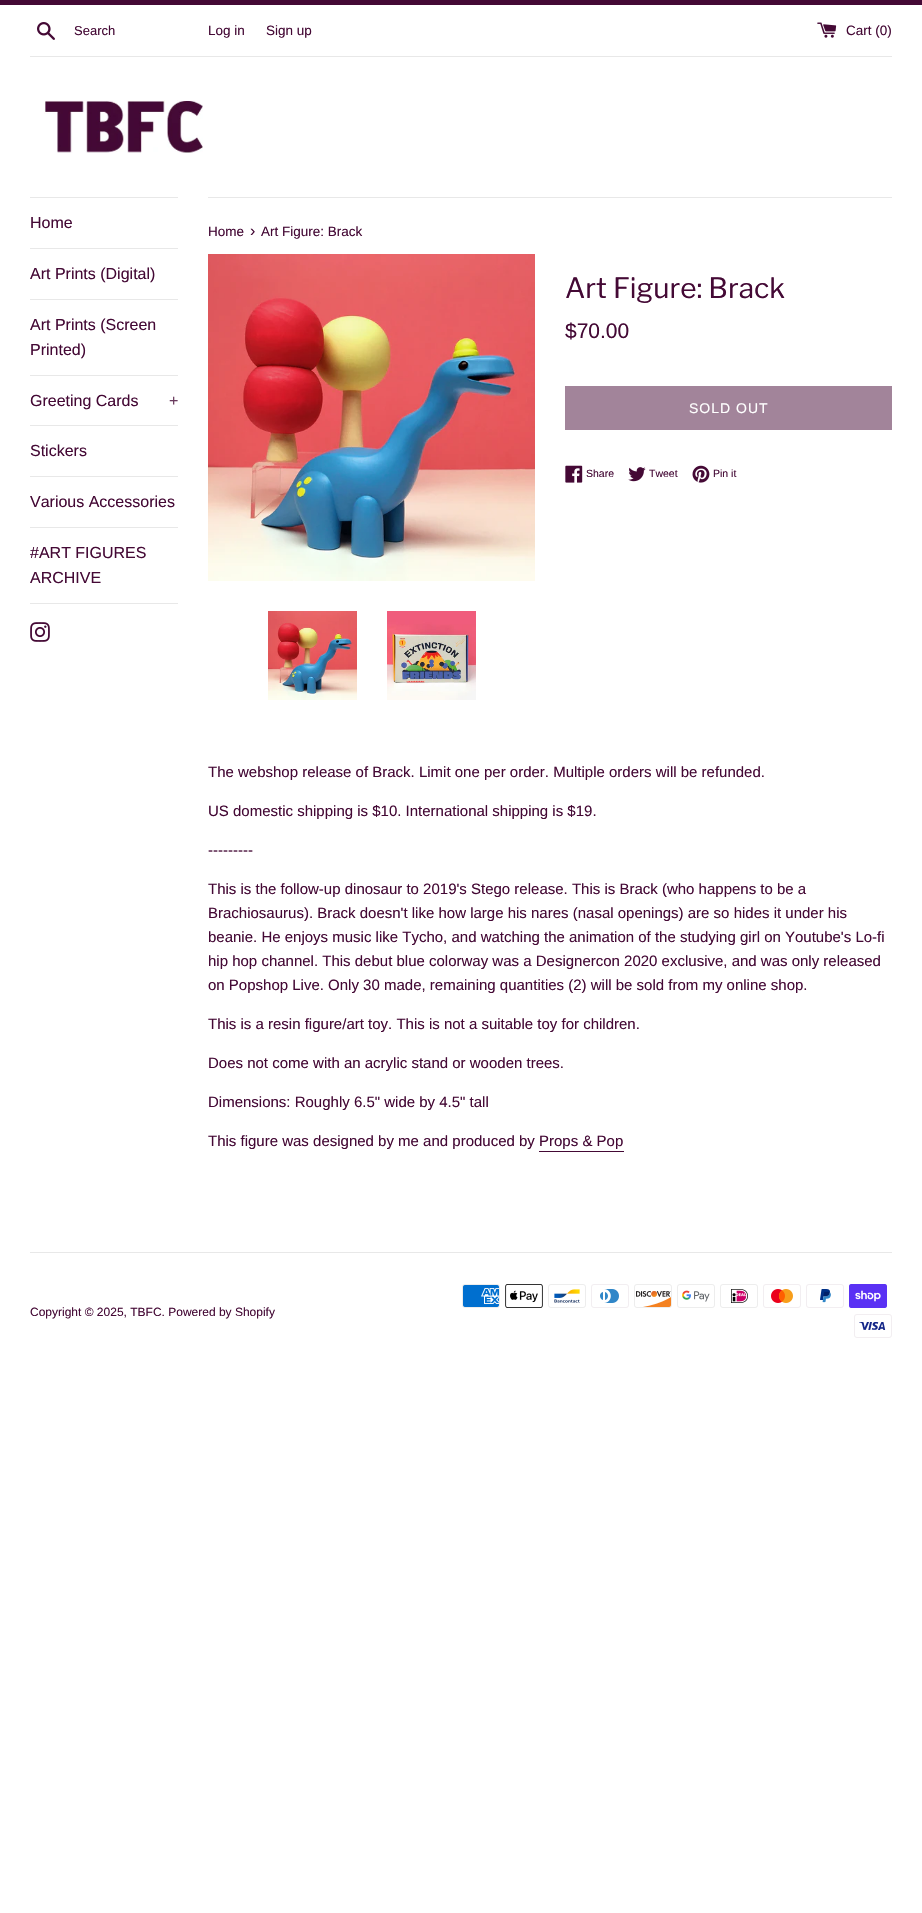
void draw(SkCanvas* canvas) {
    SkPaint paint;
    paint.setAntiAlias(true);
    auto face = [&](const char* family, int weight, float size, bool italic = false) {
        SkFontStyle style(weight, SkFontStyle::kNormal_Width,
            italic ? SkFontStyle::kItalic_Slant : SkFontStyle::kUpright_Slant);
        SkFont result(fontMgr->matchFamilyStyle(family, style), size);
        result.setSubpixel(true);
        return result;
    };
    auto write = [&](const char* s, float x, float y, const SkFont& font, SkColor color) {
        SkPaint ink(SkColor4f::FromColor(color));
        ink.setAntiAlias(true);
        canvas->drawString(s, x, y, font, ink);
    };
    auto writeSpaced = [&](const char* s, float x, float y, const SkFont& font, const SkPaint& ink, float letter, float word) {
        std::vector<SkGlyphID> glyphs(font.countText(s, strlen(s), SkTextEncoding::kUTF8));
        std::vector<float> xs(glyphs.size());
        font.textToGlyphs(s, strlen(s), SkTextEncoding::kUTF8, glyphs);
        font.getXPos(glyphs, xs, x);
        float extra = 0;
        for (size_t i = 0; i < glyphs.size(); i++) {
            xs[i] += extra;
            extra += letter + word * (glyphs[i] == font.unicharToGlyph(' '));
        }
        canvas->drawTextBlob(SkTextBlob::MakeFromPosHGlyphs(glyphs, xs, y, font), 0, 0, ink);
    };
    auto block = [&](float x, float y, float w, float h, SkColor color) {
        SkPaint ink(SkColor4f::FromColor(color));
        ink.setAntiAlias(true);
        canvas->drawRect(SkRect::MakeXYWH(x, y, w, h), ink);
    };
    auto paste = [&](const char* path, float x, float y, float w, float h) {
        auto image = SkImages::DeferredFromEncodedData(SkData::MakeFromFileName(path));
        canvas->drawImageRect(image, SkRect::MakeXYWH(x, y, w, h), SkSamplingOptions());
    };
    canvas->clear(SK_ColorWHITE);
    block(0, 0, 922, 5, SkColorSetRGB(68, 9, 53));
    paste("pic1.png", 37, 22, 18, 18);
    auto kFont1 = face("Liberation Sans", 400, 13);
    write("Search", 74, 35, kFont1, SkColorSetRGB(68, 9, 53));
    auto kFont2 = face("Liberation Sans", 400, 13.5f);
    write("Log in", 208, 35, kFont2, SkColorSetRGB(68, 9, 53));
    write("Sign up", 266, 35, kFont2, SkColorSetRGB(68, 9, 53));
    paste("pic2.png", 817, 22, 20, 16);
    write("Cart (0)", 846, 35, kFont2, SkColorSetRGB(68, 9, 53));
    block(30, 56, 862, 1, SkColorSetRGB(232, 232, 232));
    paste("pic3.png", 44, 100, 159, 53);
    block(30, 197, 148, 1, SkColorSetRGB(232, 232, 232));
    block(30, 248, 148, 1, SkColorSetRGB(232, 232, 232));
    auto kFont3 = face("Liberation Sans", 400, 16);
    write("Home", 30, 228, kFont3, SkColorSetRGB(68, 9, 53));
    block(30, 299, 148, 1, SkColorSetRGB(232, 232, 232));
    write("Art Prints (Digital)", 30, 279, kFont3, SkColorSetRGB(68, 9, 53));
    block(30, 375, 148, 1, SkColorSetRGB(232, 232, 232));
    write("Art Prints (Screen", 30, 330, kFont3, SkColorSetRGB(68, 9, 53));
    write("Printed)", 30, 355, kFont3, SkColorSetRGB(68, 9, 53));
    block(30, 425, 148, 1, SkColorSetRGB(232, 232, 232));
    write("Greeting Cards", 30, 406, kFont3, SkColorSetRGB(68, 9, 53));
    write("+", 169, 406, kFont3, SkColorSetRGB(105, 58, 93));
    block(30, 476, 148, 1, SkColorSetRGB(232, 232, 232));
    write("Stickers", 30, 456, kFont3, SkColorSetRGB(68, 9, 53));
    block(30, 527, 148, 1, SkColorSetRGB(232, 232, 232));
    write("Various Accessories", 30, 507, kFont3, SkColorSetRGB(68, 9, 53));
    block(30, 603, 148, 1, SkColorSetRGB(232, 232, 232));
    write("#ART FIGURES", 30, 558, kFont3, SkColorSetRGB(68, 9, 53));
    write("ARCHIVE", 30, 583, kFont3, SkColorSetRGB(68, 9, 53));
    paste("pic4.png", 30, 622, 20, 20);
    block(208, 197, 684, 1, SkColorSetRGB(232, 232, 232));
    write("Home", 208, 236, kFont2, SkColorSetRGB(68, 9, 53));
    write("›", 250, 236, kFont3, SkColorSetRGB(68, 9, 53));
    write("Art Figure: Brack", 261, 236, kFont2, SkColorSetRGB(68, 9, 53));
    paste("pic5.png", 208, 254, 327, 327);
    paste("pic6.png", 268, 611, 89, 89);
    paste("pic7.png", 387, 611, 89, 89);
    auto kFont4 = face("Libre Franklin", 400, 28);
    write("Art Figure: Brack", 565, 298, kFont4, SkColorSetRGB(68, 9, 53));
    auto kFont5 = face("Liberation Sans", 400, 21);
    write("$70.00", 565, 338, kFont5, SkColorSetRGB(68, 9, 53));
    block(565, 386, 327, 44, SkColorSetRGB(162, 132, 154));
    auto kFont6 = face("Liberation Sans", 400, 14);
    paint.setColor(SK_ColorWHITE);
    writeSpaced("SOLD OUT", 689, 413, kFont6, paint, 1, 0);
    paste("pic8.png", 565, 465, 18, 18);
    auto kFont7 = face("Liberation Sans", 400, 10.5f);
    write("Share", 586, 477, kFont7, SkColorSetRGB(68, 9, 53));
    paste("pic9.png", 628, 467, 18, 15);
    write("Tweet", 649, 477, kFont7, SkColorSetRGB(68, 9, 53));
    paste("pic10.png", 692, 465, 18, 18);
    write("Pin it", 713, 477, kFont7, SkColorSetRGB(68, 9, 53));
    auto kFont8 = face("Liberation Sans", 400, 15);
    write("The webshop release of Brack. Limit one per order. Multiple orders will be refunded.", 208, 777, kFont8, SkColorSetRGB(68, 9, 53));
    write("US domestic shipping is $10. International shipping is $19.", 208, 816, kFont8, SkColorSetRGB(68, 9, 53));
    write("---------", 208, 855, kFont8, SkColorSetRGB(68, 9, 53));
    write("This is the follow-up dinosaur to 2019's Stego release. This is Brack (who happens to be a", 208, 894, kFont8, SkColorSetRGB(68, 9, 53));
    write("Brachiosaurus). Brack doesn't like how large his nares (nasal openings) are so hides it under his", 208, 918, kFont8, SkColorSetRGB(68, 9, 53));
    write("beanie. He enjoys music like Tycho, and watching the animation of the studying girl on Youtube's Lo-fi", 208, 942, kFont8, SkColorSetRGB(68, 9, 53));
    write("hip hop channel. This debut blue colorway was a Designercon 2020 exclusive, and was only released", 208, 966, kFont8, SkColorSetRGB(68, 9, 53));
    write("on Popshop Live. Only 30 made, remaining quantities (2) will be sold from my online shop.", 208, 990, kFont8, SkColorSetRGB(68, 9, 53));
    write("This is a resin figure/art toy. This is not a suitable toy for children.", 208, 1029, kFont8, SkColorSetRGB(68, 9, 53));
    write("Does not come with an acrylic stand or wooden trees.", 208, 1068, kFont8, SkColorSetRGB(68, 9, 53));
    write("Dimensions: Roughly 6.5\" wide by 4.5\" tall", 208, 1107, kFont8, SkColorSetRGB(68, 9, 53));
    write("This figure was designed by me and produced by Props & Pop", 208, 1146, kFont8, SkColorSetRGB(68, 9, 53));
    block(539, 1151, 85, 1, SkColorSetRGB(68, 9, 53));
    block(30, 1252, 862, 1, SkColorSetRGB(232, 232, 232));
    auto kFont9 = face("Liberation Sans", 400, 12);
    write("Copyright © 2025, TBFC. Powered by Shopify", 30, 1316, kFont9, SkColorSetRGB(68, 9, 53));
    paste("pic11.png", 462, 1284, 38, 24);
    paste("pic12.png", 505, 1284, 38, 24);
    paste("pic13.png", 548, 1284, 38, 24);
    paste("pic14.png", 591, 1284, 38, 24);
    paste("pic15.png", 634, 1284, 38, 24);
    paste("pic16.png", 677, 1284, 38, 24);
    paste("pic17.png", 720, 1284, 38, 24);
    paste("pic18.png", 763, 1284, 38, 24);
    paste("pic19.png", 806, 1284, 38, 24);
    paste("pic20.png", 849, 1284, 38, 24);
    paste("pic21.png", 854, 1314, 38, 24);
}
